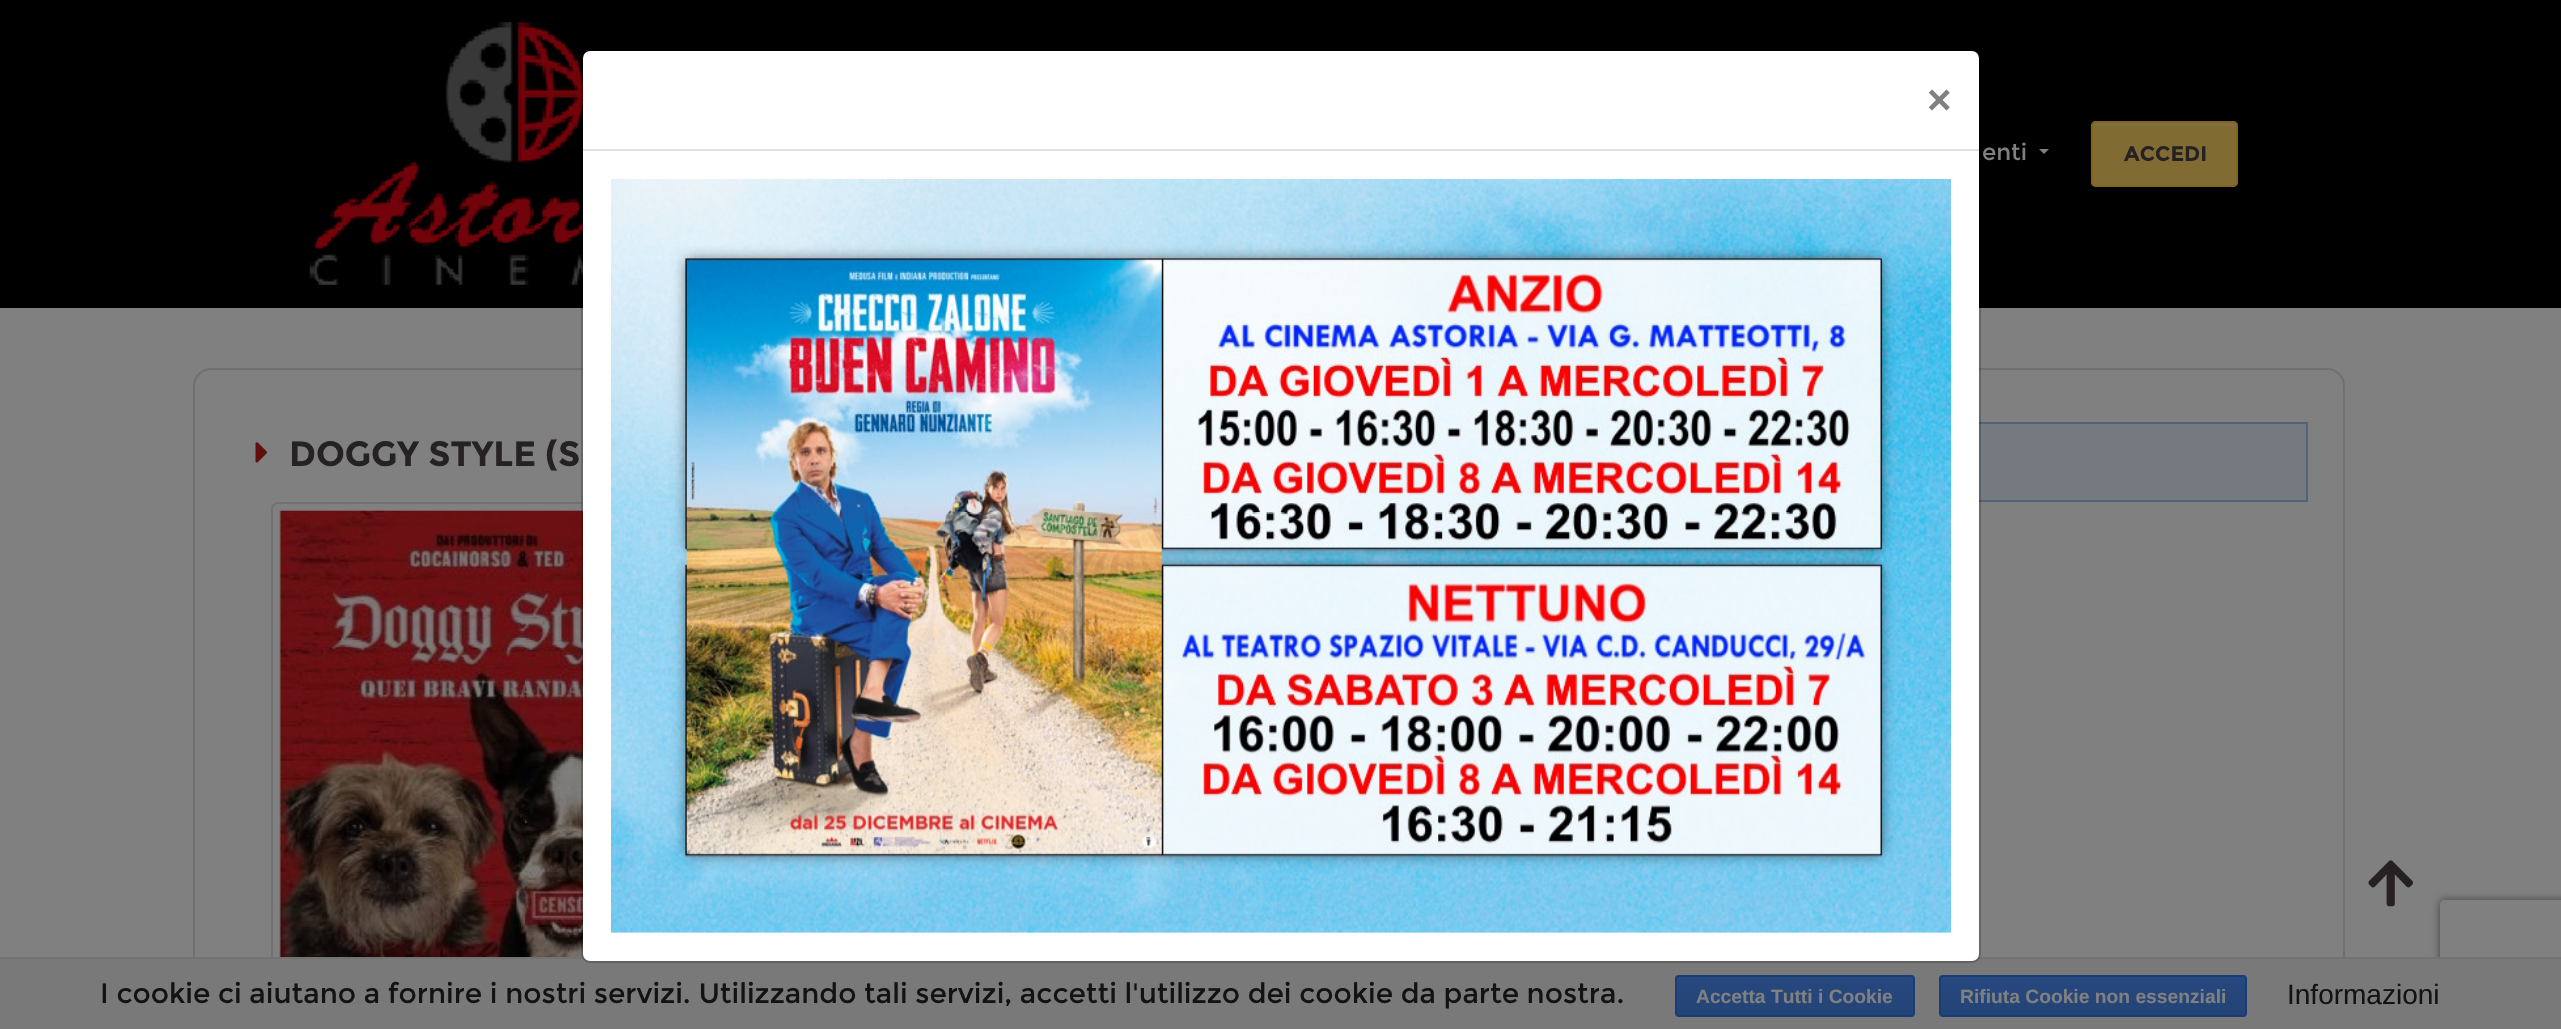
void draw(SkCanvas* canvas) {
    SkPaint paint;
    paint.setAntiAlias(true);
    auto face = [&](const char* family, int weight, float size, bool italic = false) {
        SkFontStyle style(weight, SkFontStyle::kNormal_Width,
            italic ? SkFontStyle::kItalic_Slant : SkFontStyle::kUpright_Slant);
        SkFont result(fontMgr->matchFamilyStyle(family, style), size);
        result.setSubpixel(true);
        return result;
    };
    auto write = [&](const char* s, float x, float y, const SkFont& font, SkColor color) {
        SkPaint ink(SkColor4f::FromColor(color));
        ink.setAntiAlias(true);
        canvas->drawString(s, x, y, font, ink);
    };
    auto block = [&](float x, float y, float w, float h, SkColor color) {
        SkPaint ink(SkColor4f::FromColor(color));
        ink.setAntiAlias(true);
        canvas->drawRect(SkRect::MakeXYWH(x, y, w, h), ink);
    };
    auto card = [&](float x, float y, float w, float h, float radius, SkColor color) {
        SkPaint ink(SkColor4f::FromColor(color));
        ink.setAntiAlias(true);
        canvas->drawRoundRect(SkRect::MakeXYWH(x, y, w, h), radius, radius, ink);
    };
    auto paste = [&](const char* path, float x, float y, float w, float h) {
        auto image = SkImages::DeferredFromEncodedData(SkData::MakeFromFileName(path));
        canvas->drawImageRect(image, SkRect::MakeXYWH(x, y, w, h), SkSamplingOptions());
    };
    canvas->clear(SkColorSetRGB(128, 128, 128));
    block(0, 0, 2561, 308, SK_ColorBLACK);
    paint.setStyle(SkPaint::kStroke_Style);
    paint.setStrokeWidth(2);
    paint.setColor(SkColorSetRGB(112, 112, 112));
    canvas->drawRoundRect(SkRect::MakeXYWH(194, 369, 1086, 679), 17, 17, paint);
    paint.setColor(SkColorSetRGB(111, 113, 115));
    canvas->drawRoundRect(SkRect::MakeXYWH(272, 503, 422, 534), 6, 6, paint);
    paste("pic4.png", 279, 510, 305, 447);
    paint.setColor(SkColorSetRGB(112, 112, 112));
    canvas->drawRoundRect(SkRect::MakeXYWH(1308, 369, 1036, 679), 17, 17, paint);
    block(1979, 424, 327, 76, SkColorSetRGB(116, 122, 128));
    paint.setColor(SkColorSetRGB(77, 100, 121));
    canvas->drawRect(SkRect::MakeXYWH(1345, 423, 962, 78), paint);
    canvas->save();
    canvas->clipPath(SkPathBuilder(SkPathFillType::kEvenOdd).moveTo(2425, 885).lineTo(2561, 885).lineTo(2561, 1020).lineTo(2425, 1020).close().moveTo(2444, 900).lineTo(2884, 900).cubicTo(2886, 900, 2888, 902, 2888, 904).lineTo(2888, 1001).cubicTo(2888, 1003, 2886, 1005, 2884, 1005).lineTo(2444, 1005).cubicTo(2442, 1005, 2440, 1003, 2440, 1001).lineTo(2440, 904).cubicTo(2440, 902, 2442, 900, 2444, 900).close().detach(), true);
    paint.setStyle(SkPaint::kFill_Style);
    paint.setColor(SkColorSetRGB(64, 64, 64));
    paint.setMaskFilter(SkMaskFilter::MakeBlur(kNormal_SkBlurStyle, 4.5f));
    canvas->drawRoundRect(SkRect::MakeXYWH(2440, 900, 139, 105), 4, 4, paint);
    paint.setMaskFilter(nullptr);
    canvas->restore();
    block(0, 959, 2561, 70, SkColorSetRGB(121, 121, 121));
    block(0, 957, 2561, 2, SkColorSetRGB(114, 114, 114));
    card(583, 51, 1396, 910, 7, SK_ColorWHITE);
    paste("pic2.png", 309, 22, 274, 263);
    paint.setStyle(SkPaint::kStroke_Style);
    paint.setColor(SkColorSetARGB(51, 0, 0, 0));
    canvas->drawRoundRect(SkRect::MakeXYWH(582, 50, 1398, 912), 8, 8, paint);
    block(583, 149, 1396, 2, SkColorSetRGB(222, 226, 230));
    auto kFont1 = face("Liberation Sans", 700, 42);
    write("×", 1927, 114, kFont1, SkColorSetRGB(128, 128, 128));
    paste("pic1.png", 611, 179, 1340, 754);
    auto kFont2 = face("Montserrat", 400, 23);
    write("enti", 1982, 160, kFont2, SkColorSetRGB(128, 128, 128));
    paint.setStyle(SkPaint::kFill_Style);
    paint.setColor(SkColorSetRGB(128, 128, 128));
    canvas->drawPath(SkPathBuilder().moveTo(2039, 149).lineTo(2049, 149).lineTo(2044, 154).close().detach(), paint);
    card(2091, 121, 147, 66, 5, SkColorSetRGB(128, 107, 50));
    paint.setColor(SkColorSetRGB(128, 111, 66));
    canvas->drawPath(SkPathBuilder().moveTo(2096, 126).lineTo(2233, 126).cubicTo(2235, 126, 2236, 128, 2236, 130).lineTo(2236, 185).cubicTo(2237, 184, 2237, 183, 2237, 182).lineTo(2237, 127).cubicTo(2237, 125, 2235, 123, 2233, 123).lineTo(2097, 123).cubicTo(2095, 123, 2093, 125, 2093, 127).lineTo(2093, 130).cubicTo(2093, 128, 2095, 126, 2096, 126).close().detach(), paint);
    paint.setStyle(SkPaint::kStroke_Style);
    paint.setColor(SkColorSetRGB(128, 101, 27));
    canvas->drawRoundRect(SkRect::MakeXYWH(2092, 122, 145, 64), 4, 4, paint);
    auto kFont3 = face("Montserrat", 700, 21);
    write("ACCEDI", 2124, 161, kFont3, SkColorSetRGB(38, 33, 35));
    paste("pic3.png", 255, 442, 12, 21);
    auto kFont4 = face("Montserrat", 700, 35);
    write("DOGGY STYLE (S", 289, 466, kFont4, SkColorSetRGB(38, 33, 35));
    auto kFont5 = face("Montserrat", 400, 28);
    write("I cookie ci aiutano a fornire i nostri servizi. Utilizzando tali servizi, accetti l'utilizzo dei cookie da parte nostra.", 100, 1003, kFont5, SkColorSetRGB(17, 19, 21));
    canvas->save();
    canvas->clipPath(SkPathBuilder().moveTo(1679, 975).lineTo(1911, 975).cubicTo(1913, 975, 1915, 977, 1915, 979).lineTo(1915, 1013).cubicTo(1915, 1015, 1913, 1017, 1911, 1017).lineTo(1679, 1017).cubicTo(1677, 1017, 1675, 1015, 1675, 1013).lineTo(1675, 979).cubicTo(1675, 977, 1677, 975, 1679, 975).close().detach(), true);
    paint.setStyle(SkPaint::kFill_Style);
    {
        const SkColor colors[] = {SkColorSetRGB(39, 72, 127), SkColorSetRGB(36, 68, 119)};
        const float stops[] = {0, 1};
        const SkPoint ends[] = {{1795, 977}, {1795, 1015}};
        paint.setShader(SkGradientShader::MakeLinear(ends, colors, stops, 2, SkTileMode::kClamp));
        paint.setAlpha(255);
    }
    canvas->drawRect(SkRect::MakeXYWH(1675, 977, 240, 38), paint);
    canvas->restore();
    paint.setStyle(SkPaint::kStroke_Style);
    paint.setShader(nullptr);
    paint.setColor(SkColorSetRGB(24, 61, 119));
    canvas->drawRoundRect(SkRect::MakeXYWH(1676, 976, 238, 40), 3, 3, paint);
    auto kFont6 = face("Liberation Sans", 700, 19.25f);
    write("Accetta Tutti i Cookie", 1696, 1003, kFont6, SkColorSetRGB(128, 128, 128));
    canvas->save();
    canvas->clipPath(SkPathBuilder().moveTo(1943, 975).lineTo(2243, 975).cubicTo(2245, 975, 2247, 977, 2247, 979).lineTo(2247, 1013).cubicTo(2247, 1015, 2245, 1017, 2243, 1017).lineTo(1943, 1017).cubicTo(1941, 1017, 1939, 1015, 1939, 1013).lineTo(1939, 979).cubicTo(1939, 977, 1941, 975, 1943, 975).close().detach(), true);
    paint.setStyle(SkPaint::kFill_Style);
    {
        const SkColor colors[] = {SkColorSetRGB(39, 72, 127), SkColorSetRGB(36, 68, 119)};
        const float stops[] = {0, 1};
        const SkPoint ends[] = {{2093, 977}, {2093, 1015}};
        paint.setShader(SkGradientShader::MakeLinear(ends, colors, stops, 2, SkTileMode::kClamp));
        paint.setAlpha(255);
    }
    canvas->drawRect(SkRect::MakeXYWH(1939, 977, 308, 38), paint);
    canvas->restore();
    paint.setStyle(SkPaint::kStroke_Style);
    paint.setShader(nullptr);
    paint.setColor(SkColorSetRGB(24, 61, 119));
    canvas->drawRoundRect(SkRect::MakeXYWH(1940, 976, 306, 40), 3, 3, paint);
    write("Rifiuta Cookie non essenziali", 1960, 1003, kFont6, SkColorSetRGB(128, 128, 128));
    auto kFont7 = face("Liberation Sans", 400, 28);
    write("Informazioni", 2287, 1004, kFont7, SkColorSetRGB(17, 19, 21));
    paste("pic5.png", 2368, 860, 46, 47);
}
